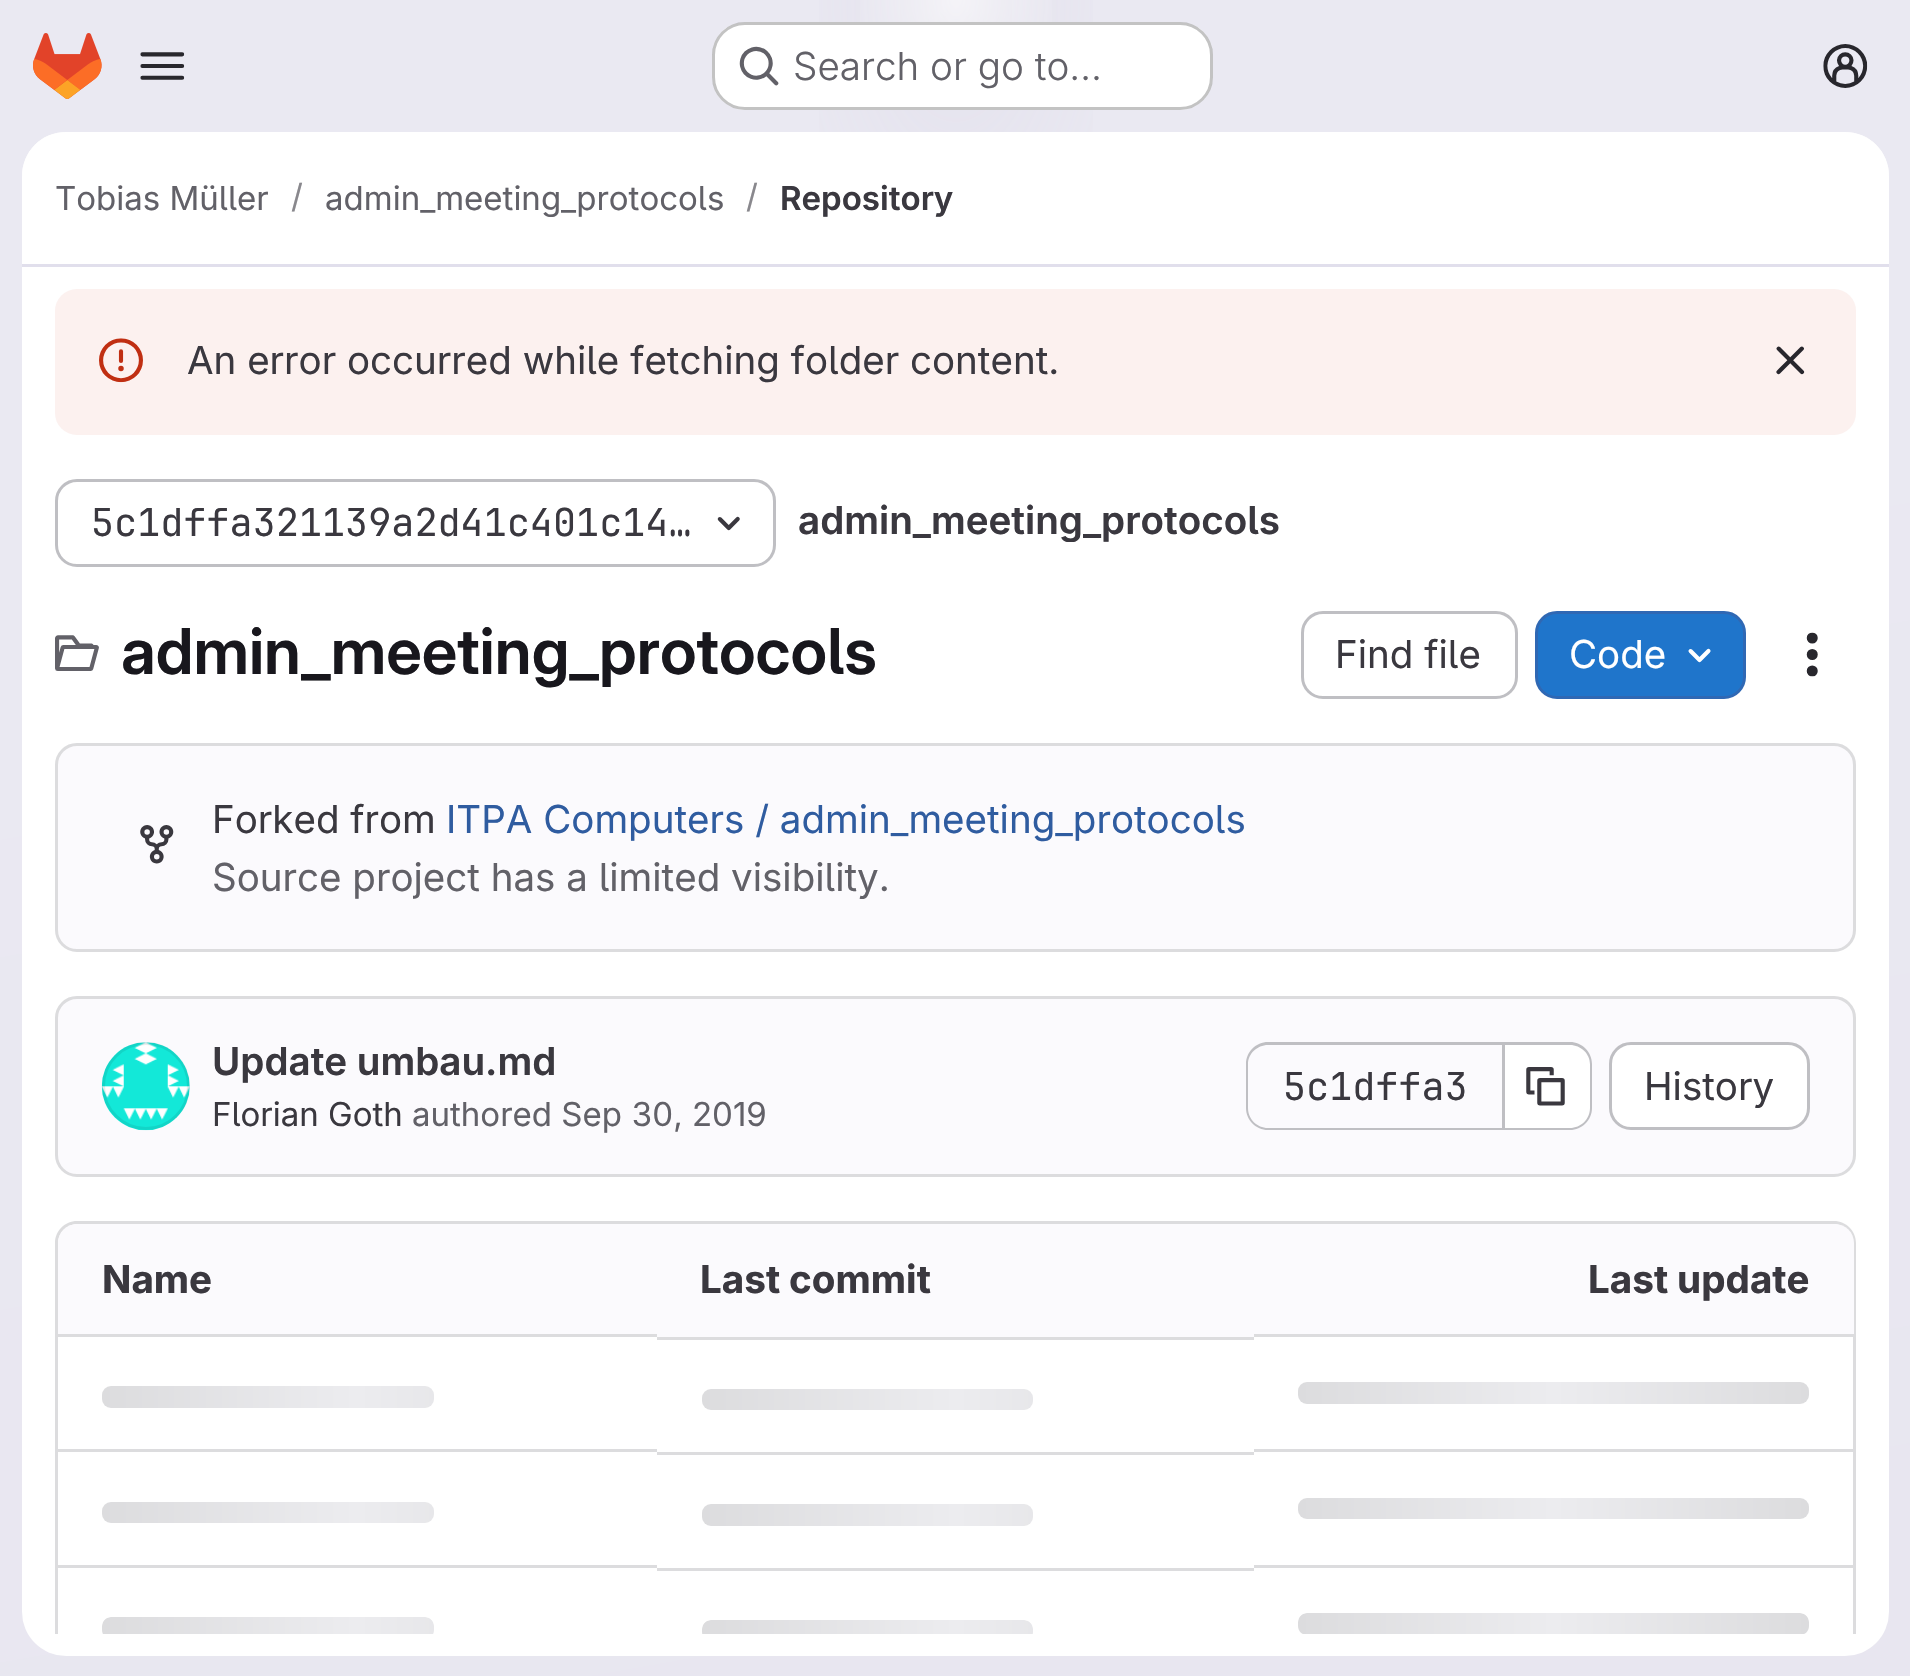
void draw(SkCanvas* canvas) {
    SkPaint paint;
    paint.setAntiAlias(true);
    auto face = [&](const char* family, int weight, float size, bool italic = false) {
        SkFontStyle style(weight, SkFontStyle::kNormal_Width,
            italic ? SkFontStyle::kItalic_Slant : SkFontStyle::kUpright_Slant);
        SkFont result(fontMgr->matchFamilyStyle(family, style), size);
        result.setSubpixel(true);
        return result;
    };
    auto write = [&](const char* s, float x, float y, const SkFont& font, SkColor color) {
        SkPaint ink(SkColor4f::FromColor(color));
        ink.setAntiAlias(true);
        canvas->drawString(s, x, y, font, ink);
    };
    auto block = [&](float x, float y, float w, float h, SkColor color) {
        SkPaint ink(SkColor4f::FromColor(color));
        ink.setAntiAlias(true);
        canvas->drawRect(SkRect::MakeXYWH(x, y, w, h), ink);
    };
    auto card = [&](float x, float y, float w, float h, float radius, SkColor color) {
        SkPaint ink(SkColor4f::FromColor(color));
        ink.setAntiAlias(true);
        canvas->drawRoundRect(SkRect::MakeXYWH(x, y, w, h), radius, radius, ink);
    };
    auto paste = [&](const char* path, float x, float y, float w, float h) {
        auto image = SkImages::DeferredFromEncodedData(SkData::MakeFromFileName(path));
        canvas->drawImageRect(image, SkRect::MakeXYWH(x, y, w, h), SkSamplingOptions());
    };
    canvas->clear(SK_ColorWHITE);
    {
        const SkColor colors[] = {SkColorSetRGB(232, 230, 240), SkColorSetRGB(234, 233, 242)};
        const float stops[] = {0, 0.7f};
        const SkPoint ends[] = {{1128, 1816}, {783, -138}};
        paint.setShader(SkGradientShader::MakeLinear(ends, colors, stops, 2, SkTileMode::kClamp));
        paint.setAlpha(255);
    }
    canvas->drawRect(SkRect::MakeXYWH(0, 0, 1910, 1676), paint);
    {
        const SkColor colors[] = {SkColorSetRGB(228, 226, 237), SkColorSetARGB(0, 228, 226, 237)};
        const float stops[] = {0, 0.2f};
        SkMatrix m = SkMatrix::Translate(956, 0).preScale(956, 1678);
        paint.setShader(SkGradientShader::MakeRadial({0, 0}, 1, colors, stops, 2, SkTileMode::kClamp, 0, &m));
        paint.setAlpha(255);
    }
    canvas->drawRect(SkRect::MakeXYWH(819, 0, 274, 132), paint);
    {
        const SkColor colors[] = {SkColorSetRGB(228, 226, 236), SkColorSetARGB(0, 228, 226, 236)};
        const float stops[] = {0, 0.14f};
        SkMatrix m = SkMatrix::Translate(956, 0).preScale(956, 1678);
        paint.setShader(SkGradientShader::MakeRadial({0, 0}, 1, colors, stops, 2, SkTileMode::kClamp, 0, &m));
        paint.setAlpha(255);
    }
    canvas->drawRect(SkRect::MakeXYWH(900, 0, 112, 93), paint);
    {
        const SkColor colors[] = {SkColorSetARGB(153, 255, 255, 255), SkColorSetARGB(0, 255, 255, 255)};
        const float stops[] = {0, 0.06f};
        paint.setShader(SkGradientShader::MakeRadial({956, 0}, 1931, colors, stops, 2, SkTileMode::kClamp));
        paint.setAlpha(255);
    }
    canvas->drawRect(SkRect::MakeXYWH(860, 0, 192, 98), paint);
    paste("pic1.png", 33, 33, 69, 66);
    paste("pic2.png", 140, 52, 45, 28);
    card(712, 22, 501, 88, 33, SK_ColorWHITE);
    paint.setStyle(SkPaint::kStroke_Style);
    paint.setStrokeWidth(3);
    paint.setShader(nullptr);
    paint.setColor(SkColorSetARGB(61, 5, 5, 6));
    canvas->drawRoundRect(SkRect::MakeXYWH(713.5f, 23.5f, 498, 85), 31.5f, 31.5f, paint);
    paste("pic3.png", 739, 46, 40, 40);
    auto kFont1 = face("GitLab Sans", 300, 38.5f);
    write("Search or go to…", 793, 80, kFont1, SkColorSetRGB(98, 97, 104));
    paste("pic4.png", 1823, 44, 45, 44);
    card(22, 132, 1867, 1524, 44, SK_ColorWHITE);
    paint.setStyle(SkPaint::kFill_Style);
    paint.setColor(SK_ColorWHITE);
    canvas->drawPath(SkPathBuilder().moveTo(66, 132).lineTo(1845, 132).cubicTo(1869.5f, 132, 1889, 151.5f, 1889, 176).lineTo(1889, 267).lineTo(22, 267).lineTo(22, 176).cubicTo(22, 151.5f, 41.5f, 132, 66, 132).close().detach(), paint);
    block(22, 264, 1867, 3, SkColorSetRGB(225, 223, 236));
    auto kFont2 = face("GitLab Sans", 400, 33);
    write("Tobias Müller", 55, 210, kFont2, SkColorSetRGB(98, 97, 104));
    write("/", 291, 208, kFont2, SkColorSetRGB(137, 136, 141));
    write("admin_meeting_protocols", 325, 210, kFont2, SkColorSetRGB(98, 97, 104));
    write("/", 746, 208, kFont2, SkColorSetRGB(137, 136, 141));
    auto kFont3 = face("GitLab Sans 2", 600, 33);
    write("Repository", 780, 210, kFont3, SkColorSetRGB(58, 56, 63));
    card(55, 289, 1801, 146, 22, SkColorSetRGB(252, 241, 239));
    paste("pic5.png", 99, 338, 44, 45);
    auto kFont4 = face("GitLab Sans", 400, 38.5f);
    write("An error occurred while fetching folder content.", 187, 374, kFont4, SkColorSetRGB(58, 56, 63));
    paste("pic6.png", 1776, 346, 29, 29);
    paint.setStyle(SkPaint::kStroke_Style);
    paint.setColor(SkColorSetRGB(191, 191, 195));
    canvas->drawRoundRect(SkRect::MakeXYWH(56.5f, 480.5f, 718, 85), 20.5f, 20.5f, paint);
    auto kFont5 = face("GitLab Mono", 400, 38.5f);
    write("5c1dffa321139a2d41c401c14…", 91, 536, kFont5, SkColorSetRGB(58, 56, 63));
    paste("pic7.png", 717, 516, 23, 15);
    canvas->save();
    canvas->clipPath(SkPathBuilder().moveTo(809, 495).lineTo(1268, 495).cubicTo(1274, 495, 1279, 500, 1279, 506).lineTo(1279, 531).cubicTo(1279, 537, 1274, 542, 1268, 542).lineTo(809, 542).cubicTo(803, 542, 798, 537, 798, 531).lineTo(798, 506).cubicTo(798, 500, 803, 495, 809, 495).close().detach(), true);
    auto kFont6 = face("GitLab Sans 2", 600, 38.5f);
    write("admin_meeting_protocols", 798, 534, kFont6, SkColorSetRGB(58, 56, 63));
    canvas->restore();
    paste("pic8.png", 55, 635, 44, 36);
    auto kFont7 = face("GitLab Sans", 600, 63.25f);
    write("admin_meeting_protocols", 121, 674, kFont7, SkColorSetRGB(24, 23, 29));
    canvas->drawRoundRect(SkRect::MakeXYWH(1302.5f, 612.5f, 214, 85), 20.5f, 20.5f, paint);
    write("Find file", 1335, 668, kFont4, SkColorSetRGB(58, 56, 63));
    paint.setStyle(SkPaint::kFill_Style);
    paint.setColor(SkColorSetRGB(31, 117, 203));
    canvas->drawRoundRect(SkRect::MakeXYWH(1536.5f, 612.5f, 208, 85), 20.5f, 20.5f, paint);
    paint.setStyle(SkPaint::kStroke_Style);
    paint.setColor(SkColorSetRGB(47, 104, 180));
    canvas->drawRoundRect(SkRect::MakeXYWH(1536.5f, 612.5f, 208, 85), 20.5f, 20.5f, paint);
    write("Code", 1569, 668, kFont4, SK_ColorWHITE);
    paste("pic9.png", 1688, 648, 23, 15);
    paste("pic10.png", 1806, 632, 12, 45);
    paint.setStyle(SkPaint::kFill_Style);
    paint.setColor(SkColorSetRGB(251, 250, 253));
    canvas->drawRoundRect(SkRect::MakeXYWH(56.5f, 744.5f, 1798, 206), 20.5f, 20.5f, paint);
    paint.setStyle(SkPaint::kStroke_Style);
    paint.setColor(SkColorSetRGB(220, 220, 222));
    canvas->drawRoundRect(SkRect::MakeXYWH(56.5f, 744.5f, 1798, 206), 20.5f, 20.5f, paint);
    paste("pic11.png", 140, 825, 34, 39);
    write("Forked from", 212, 833, kFont4, SkColorSetRGB(58, 56, 63));
    write("ITPA Computers / admin_meeting_protocols", 446, 833, kFont4, SkColorSetRGB(47, 92, 160));
    write("Source project has a limited visibility.", 212, 891, kFont4, SkColorSetRGB(98, 97, 104));
    paint.setStyle(SkPaint::kFill_Style);
    paint.setColor(SkColorSetRGB(251, 250, 253));
    canvas->drawRoundRect(SkRect::MakeXYWH(56.5f, 997.5f, 1798, 178), 20.5f, 20.5f, paint);
    paint.setStyle(SkPaint::kStroke_Style);
    paint.setColor(SkColorSetRGB(220, 220, 222));
    canvas->drawRoundRect(SkRect::MakeXYWH(56.5f, 997.5f, 1798, 178), 20.5f, 20.5f, paint);
    paste("pic12.png", 101, 1042, 89, 89);
    paint.setColor(SkColorSetARGB(20, 5, 5, 6));
    canvas->drawCircle(146, 1086, 42.5f, paint);
    write("Update umbau.md", 212, 1075, kFont6, SkColorSetRGB(58, 56, 63));
    write("Florian Goth", 212, 1126, kFont2, SkColorSetRGB(58, 56, 63));
    write("authored Sep 30, 2019", 412, 1126, kFont2, SkColorSetRGB(98, 97, 104));
    paint.setStyle(SkPaint::kFill_Style);
    paint.setColor(SkColorSetRGB(191, 191, 195));
    canvas->drawPath(SkPathBuilder(SkPathFillType::kEvenOdd).moveTo(1268, 1042).lineTo(1502, 1042).lineTo(1502, 1130).lineTo(1268, 1130).cubicTo(1256, 1130, 1246, 1120, 1246, 1108).lineTo(1246, 1064).cubicTo(1246, 1052, 1256, 1042, 1268, 1042).close().moveTo(1268, 1045).lineTo(1502, 1045).lineTo(1502, 1128).lineTo(1268, 1128).cubicTo(1257, 1128, 1248, 1119, 1248, 1108).lineTo(1248, 1064).cubicTo(1248, 1054, 1257, 1045, 1268, 1045).close().detach(), paint);
    write("5c1dffa3", 1283, 1100, kFont5, SkColorSetRGB(58, 56, 63));
    paint.setColor(SK_ColorWHITE);
    canvas->drawPath(SkPathBuilder().moveTo(1504, 1045).lineTo(1571, 1045).cubicTo(1581.5f, 1045, 1590, 1053.5f, 1590, 1064).lineTo(1590, 1109).cubicTo(1590, 1119.5f, 1581.5f, 1128, 1571, 1128).lineTo(1504, 1128).close().detach(), paint);
    paint.setColor(SkColorSetRGB(191, 191, 195));
    canvas->drawPath(SkPathBuilder(SkPathFillType::kEvenOdd).moveTo(1504, 1042).lineTo(1570, 1042).cubicTo(1582, 1042, 1592, 1052, 1592, 1064).lineTo(1592, 1108).cubicTo(1592, 1120, 1582, 1130, 1570, 1130).lineTo(1504, 1130).close().moveTo(1504, 1045).lineTo(1570, 1045).cubicTo(1581, 1045, 1590, 1054, 1590, 1064).lineTo(1590, 1108).cubicTo(1590, 1119, 1581, 1128, 1570, 1128).lineTo(1504, 1128).close().detach(), paint);
    block(1502, 1042, 3, 88, SkColorSetRGB(191, 191, 195));
    paste("pic13.png", 1526, 1067, 39, 39);
    paint.setColor(SK_ColorWHITE);
    canvas->drawRoundRect(SkRect::MakeXYWH(1610.5f, 1043.5f, 198, 85), 20.5f, 20.5f, paint);
    paint.setStyle(SkPaint::kStroke_Style);
    paint.setColor(SkColorSetRGB(191, 191, 195));
    canvas->drawRoundRect(SkRect::MakeXYWH(1610.5f, 1043.5f, 198, 85), 20.5f, 20.5f, paint);
    write("History", 1644, 1100, kFont4, SkColorSetRGB(58, 56, 63));
    canvas->save();
    canvas->clipRect(SkRect::MakeXYWH(22, 267, 1867, 1367));
    paint.setStyle(SkPaint::kFill_Style);
    paint.setColor(SkColorSetRGB(220, 220, 222));
    canvas->drawPath(SkPathBuilder().moveTo(77, 1221).cubicTo(65, 1221, 55, 1231, 55, 1243).lineTo(55, 1655).lineTo(58, 1655).lineTo(58, 1243).cubicTo(58, 1233, 67, 1224, 77, 1224).lineTo(1834, 1224).cubicTo(1844, 1224, 1853, 1233, 1853, 1243).lineTo(1853, 1655).lineTo(1856, 1655).lineTo(1856, 1243).cubicTo(1856, 1231, 1846, 1221, 1834, 1221).close().detach(), paint);
    canvas->restore();
    paint.setColor(SkColorSetRGB(251, 250, 253));
    canvas->drawPath(SkPathBuilder().moveTo(77, 1224).lineTo(657, 1224).lineTo(657, 1337).lineTo(58, 1337).lineTo(58, 1243).cubicTo(58, 1232.5f, 66.5f, 1224, 77, 1224).close().detach(), paint);
    auto kFont8 = face("GitLab Sans", 700, 38.5f);
    write("Name", 102, 1293, kFont8, SkColorSetRGB(58, 56, 63));
    block(657, 1224, 597, 113, SkColorSetRGB(251, 250, 253));
    write("Last commit", 700, 1293, kFont8, SkColorSetRGB(58, 56, 63));
    canvas->drawPath(SkPathBuilder().moveTo(1254, 1224).lineTo(1835, 1224).cubicTo(1845.5f, 1224, 1854, 1232.5f, 1854, 1243).lineTo(1854, 1337).lineTo(1254, 1337).close().detach(), paint);
    write("Last update", 1588, 1293, kFont8, SkColorSetRGB(58, 56, 63));
    block(58, 1334, 599, 3, SkColorSetRGB(220, 220, 222));
    {
        const SkColor colors[] = {SkColorSetRGB(220, 220, 222), SkColorSetRGB(236, 236, 239), SkColorSetRGB(220, 220, 222)};
        const float stops[] = {0, 0.5f, 1};
        const SkPoint ends[] = {{102, 1386}, {612, 1386}};
        paint.setShader(SkGradientShader::MakeLinear(ends, colors, stops, 3, SkTileMode::kClamp));
        paint.setAlpha(255);
    }
    canvas->drawRoundRect(SkRect::MakeXYWH(102, 1386, 332, 22), 9, 9, paint);
    block(657, 1337, 597, 3, SkColorSetRGB(220, 220, 222));
    {
        const SkColor colors[] = {SkColorSetRGB(220, 220, 222), SkColorSetRGB(236, 236, 239), SkColorSetRGB(220, 220, 222)};
        const float stops[] = {0, 0.5f, 1};
        const SkPoint ends[] = {{702, 1389}, {1211, 1389}};
        paint.setShader(SkGradientShader::MakeLinear(ends, colors, stops, 3, SkTileMode::kClamp));
        paint.setAlpha(255);
    }
    canvas->drawRoundRect(SkRect::MakeXYWH(702, 1389, 331, 21), 9, 9, paint);
    block(1254, 1334, 600, 3, SkColorSetRGB(220, 220, 222));
    {
        const SkColor colors[] = {SkColorSetRGB(220, 220, 222), SkColorSetRGB(236, 236, 239), SkColorSetRGB(220, 220, 222)};
        const float stops[] = {0, 0.5f, 1};
        const SkPoint ends[] = {{1298, 1382}, {1809, 1382}};
        paint.setShader(SkGradientShader::MakeLinear(ends, colors, stops, 3, SkTileMode::kClamp));
        paint.setAlpha(255);
    }
    canvas->drawRoundRect(SkRect::MakeXYWH(1298, 1382, 511, 22), 9, 9, paint);
    block(58, 1449, 599, 3, SkColorSetRGB(220, 220, 222));
    {
        const SkColor colors[] = {SkColorSetRGB(220, 220, 222), SkColorSetRGB(236, 236, 239), SkColorSetRGB(220, 220, 222)};
        const float stops[] = {0, 0.5f, 1};
        const SkPoint ends[] = {{102, 1502}, {612, 1502}};
        paint.setShader(SkGradientShader::MakeLinear(ends, colors, stops, 3, SkTileMode::kClamp));
        paint.setAlpha(255);
    }
    canvas->drawRoundRect(SkRect::MakeXYWH(102, 1502, 332, 21), 9, 9, paint);
    block(657, 1452, 597, 3, SkColorSetRGB(220, 220, 222));
    {
        const SkColor colors[] = {SkColorSetRGB(220, 220, 222), SkColorSetRGB(236, 236, 239), SkColorSetRGB(220, 220, 222)};
        const float stops[] = {0, 0.5f, 1};
        const SkPoint ends[] = {{702, 1504}, {1211, 1504}};
        paint.setShader(SkGradientShader::MakeLinear(ends, colors, stops, 3, SkTileMode::kClamp));
        paint.setAlpha(255);
    }
    canvas->drawRoundRect(SkRect::MakeXYWH(702, 1504, 331, 22), 9, 9, paint);
    block(1254, 1449, 600, 3, SkColorSetRGB(220, 220, 222));
    {
        const SkColor colors[] = {SkColorSetRGB(220, 220, 222), SkColorSetRGB(236, 236, 239), SkColorSetRGB(220, 220, 222)};
        const float stops[] = {0, 0.5f, 1};
        const SkPoint ends[] = {{1298, 1498}, {1809, 1498}};
        paint.setShader(SkGradientShader::MakeLinear(ends, colors, stops, 3, SkTileMode::kClamp));
        paint.setAlpha(255);
    }
    canvas->drawRoundRect(SkRect::MakeXYWH(1298, 1498, 511, 21), 9, 9, paint);
    block(58, 1565, 599, 3, SkColorSetRGB(220, 220, 222));
    canvas->save();
    canvas->clipPath(SkPathBuilder().moveTo(111, 1617).lineTo(425, 1617).cubicTo(430, 1617, 434, 1621, 434, 1626).lineTo(434, 1630).cubicTo(434, 1635, 430, 1639, 425, 1639).lineTo(111, 1639).cubicTo(106, 1639, 102, 1635, 102, 1630).lineTo(102, 1626).cubicTo(102, 1621, 106, 1617, 111, 1617).close().detach(), true);
    {
        const SkColor colors[] = {SkColorSetRGB(220, 220, 222), SkColorSetRGB(236, 236, 239), SkColorSetRGB(220, 220, 222)};
        const float stops[] = {0, 0.5f, 1};
        const SkPoint ends[] = {{102, 1617}, {612, 1617}};
        paint.setShader(SkGradientShader::MakeLinear(ends, colors, stops, 3, SkTileMode::kClamp));
        paint.setAlpha(255);
    }
    canvas->drawPath(SkPathBuilder().moveTo(111, 1617).lineTo(425, 1617).cubicTo(430, 1617, 434, 1621, 434, 1626).lineTo(434, 1634).lineTo(102, 1634).lineTo(102, 1626).cubicTo(102, 1621, 106, 1617, 111, 1617).close().detach(), paint);
    canvas->restore();
    block(657, 1568, 597, 3, SkColorSetRGB(220, 220, 222));
    canvas->save();
    canvas->clipPath(SkPathBuilder().moveTo(711, 1620).lineTo(1024, 1620).cubicTo(1029, 1620, 1033, 1624, 1033, 1629).lineTo(1033, 1632).cubicTo(1033, 1637, 1029, 1641, 1024, 1641).lineTo(711, 1641).cubicTo(706, 1641, 702, 1637, 702, 1632).lineTo(702, 1629).cubicTo(702, 1624, 706, 1620, 711, 1620).close().detach(), true);
    {
        const SkColor colors[] = {SkColorSetRGB(220, 220, 222), SkColorSetRGB(236, 236, 239), SkColorSetRGB(220, 220, 222)};
        const float stops[] = {0, 0.5f, 1};
        const SkPoint ends[] = {{702, 1620}, {1211, 1620}};
        paint.setShader(SkGradientShader::MakeLinear(ends, colors, stops, 3, SkTileMode::kClamp));
        paint.setAlpha(255);
    }
    canvas->drawPath(SkPathBuilder().moveTo(711, 1620).lineTo(1024, 1620).cubicTo(1029, 1620, 1033, 1624, 1033, 1629).lineTo(1033, 1634).lineTo(702, 1634).lineTo(702, 1629).cubicTo(702, 1624, 706, 1620, 711, 1620).close().detach(), paint);
    canvas->restore();
    block(1254, 1565, 600, 3, SkColorSetRGB(220, 220, 222));
    canvas->save();
    canvas->clipPath(SkPathBuilder().moveTo(1307, 1613).lineTo(1800, 1613).cubicTo(1805, 1613, 1809, 1617, 1809, 1622).lineTo(1809, 1626).cubicTo(1809, 1631, 1805, 1635, 1800, 1635).lineTo(1307, 1635).cubicTo(1302, 1635, 1298, 1631, 1298, 1626).lineTo(1298, 1622).cubicTo(1298, 1617, 1302, 1613, 1307, 1613).close().detach(), true);
    {
        const SkColor colors[] = {SkColorSetRGB(220, 220, 222), SkColorSetRGB(236, 236, 239), SkColorSetRGB(220, 220, 222)};
        const float stops[] = {0, 0.5f, 1};
        const SkPoint ends[] = {{1298, 1613}, {1809, 1613}};
        paint.setShader(SkGradientShader::MakeLinear(ends, colors, stops, 3, SkTileMode::kClamp));
        paint.setAlpha(255);
    }
    canvas->drawPath(SkPathBuilder().moveTo(1307, 1613).lineTo(1800, 1613).cubicTo(1805, 1613, 1809, 1617, 1809, 1622).lineTo(1809, 1634).lineTo(1298, 1634).lineTo(1298, 1622).cubicTo(1298, 1617, 1302, 1613, 1307, 1613).close().detach(), paint);
    canvas->restore();
}
